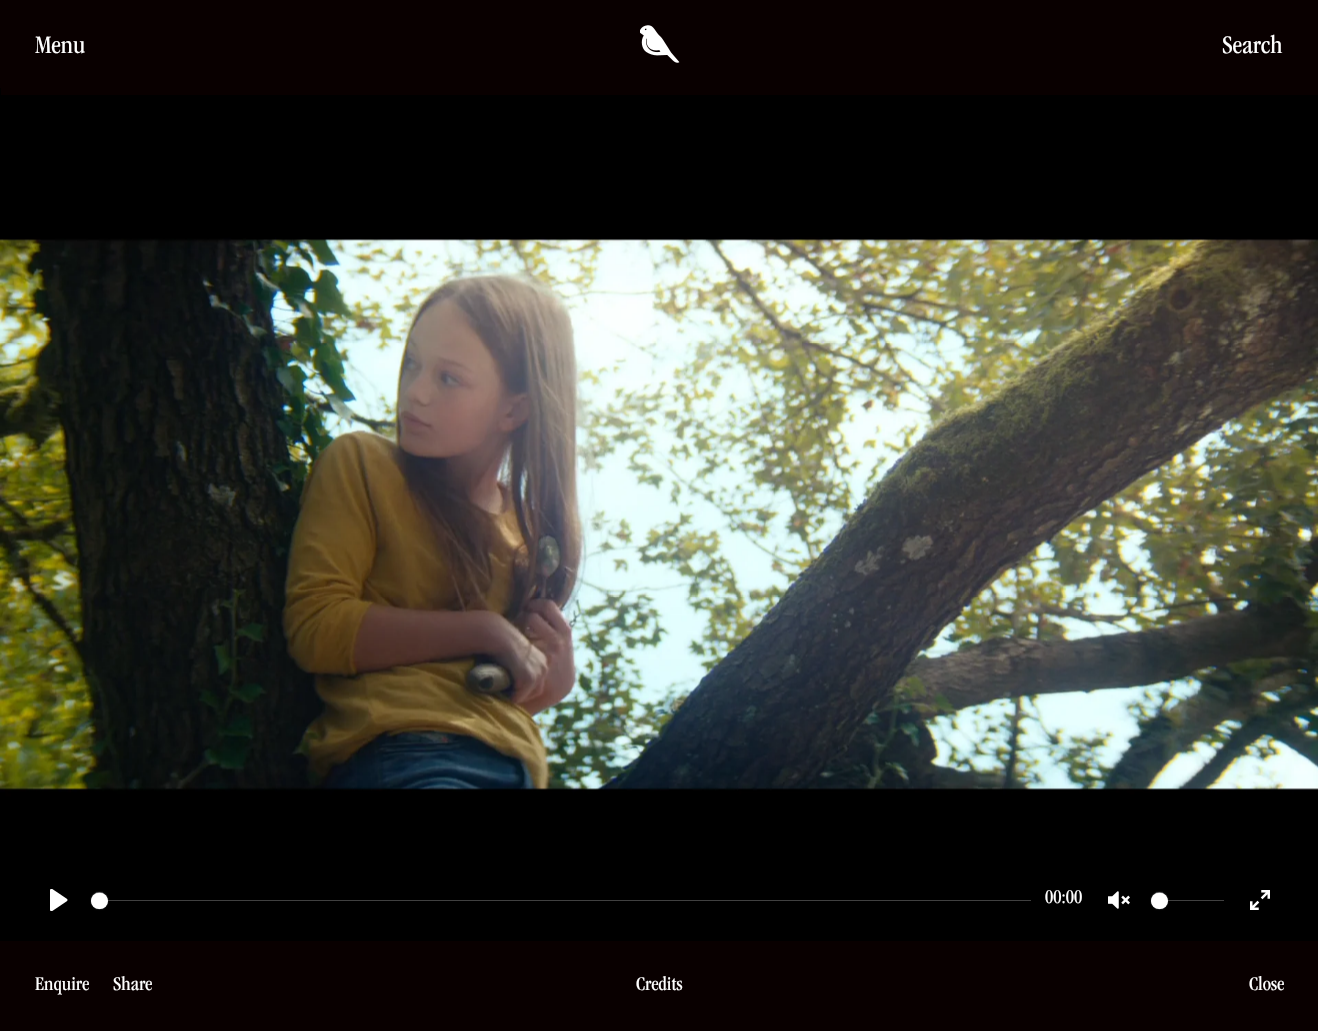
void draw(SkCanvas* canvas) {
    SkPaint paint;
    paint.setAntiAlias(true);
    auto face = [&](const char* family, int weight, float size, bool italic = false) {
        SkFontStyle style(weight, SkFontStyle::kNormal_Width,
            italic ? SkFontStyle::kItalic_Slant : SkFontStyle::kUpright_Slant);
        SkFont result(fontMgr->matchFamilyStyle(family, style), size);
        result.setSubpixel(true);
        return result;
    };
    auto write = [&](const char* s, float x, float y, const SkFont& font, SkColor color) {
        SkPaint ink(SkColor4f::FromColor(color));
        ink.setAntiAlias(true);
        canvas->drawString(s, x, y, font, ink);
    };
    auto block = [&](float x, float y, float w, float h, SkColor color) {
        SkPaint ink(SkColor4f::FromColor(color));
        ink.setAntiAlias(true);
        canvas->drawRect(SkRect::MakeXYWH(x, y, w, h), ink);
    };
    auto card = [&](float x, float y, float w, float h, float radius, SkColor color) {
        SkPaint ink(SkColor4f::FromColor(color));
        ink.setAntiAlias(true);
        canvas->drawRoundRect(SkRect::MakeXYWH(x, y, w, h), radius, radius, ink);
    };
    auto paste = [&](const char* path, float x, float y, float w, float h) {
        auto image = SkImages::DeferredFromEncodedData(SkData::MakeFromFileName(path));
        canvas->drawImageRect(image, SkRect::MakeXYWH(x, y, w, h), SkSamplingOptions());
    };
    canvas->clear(SkColorSetRGB(9, 0, 0));
    block(0, 88, 1318, 853, SK_ColorBLACK);
    block(1, 88, 1317, 7, SkColorSetRGB(9, 0, 0));
    auto kFont1 = face("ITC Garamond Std", 400, 26);
    write("Menu", 35, 53, kFont1, SK_ColorWHITE);
    paste("pic1.png", 640, 25, 40, 38);
    write("Search", 1222, 53, kFont1, SK_ColorWHITE);
    paste("pic2.png", 0, 237, 1318, 673);
    paste("pic3.png", 50, 889, 18, 22);
    block(91, 900, 940, 1, SkColorSetARGB(64, 255, 255, 255));
    paint.setStyle(SkPaint::kStroke_Style);
    paint.setStrokeWidth(1);
    paint.setColor(SkColorSetARGB(51, 35, 40, 47));
    canvas->drawCircle(99.5f, 900.5f, 9, paint);
    paint.setStyle(SkPaint::kFill_Style);
    paint.setColor(SkColorSetARGB(38, 35, 40, 47));
    paint.setMaskFilter(SkMaskFilter::MakeBlur(kNormal_SkBlurStyle, 0.5f));
    canvas->drawRoundRect(SkRect::MakeXYWH(91, 894, 17, 16), 8, 8, paint);
    paint.setMaskFilter(nullptr);
    card(91, 893, 17, 16, 8, SK_ColorWHITE);
    auto kFont2 = face("ITC Garamond Std", 400, 20);
    write("00:00", 1045, 903, kFont2, SK_ColorWHITE);
    paste("pic4.png", 1108, 891, 22, 18);
    block(1151, 900, 73, 1, SkColorSetARGB(64, 255, 255, 255));
    paint.setStyle(SkPaint::kStroke_Style);
    paint.setColor(SkColorSetARGB(51, 35, 40, 47));
    canvas->drawCircle(1159.5f, 900.5f, 9, paint);
    paint.setStyle(SkPaint::kFill_Style);
    paint.setColor(SkColorSetARGB(38, 35, 40, 47));
    paint.setMaskFilter(SkMaskFilter::MakeBlur(kNormal_SkBlurStyle, 0.5f));
    canvas->drawRoundRect(SkRect::MakeXYWH(1151, 894, 17, 16), 8, 8, paint);
    paint.setMaskFilter(nullptr);
    card(1151, 893, 17, 16, 8, SK_ColorWHITE);
    paste("pic5.png", 1250, 890, 20, 20);
    write("Enquire", 35, 990, kFont2, SK_ColorWHITE);
    write("Share", 113, 990, kFont2, SK_ColorWHITE);
    write("Credits", 636, 990, kFont2, SK_ColorWHITE);
    write("Close", 1249, 990, kFont2, SK_ColorWHITE);
}
